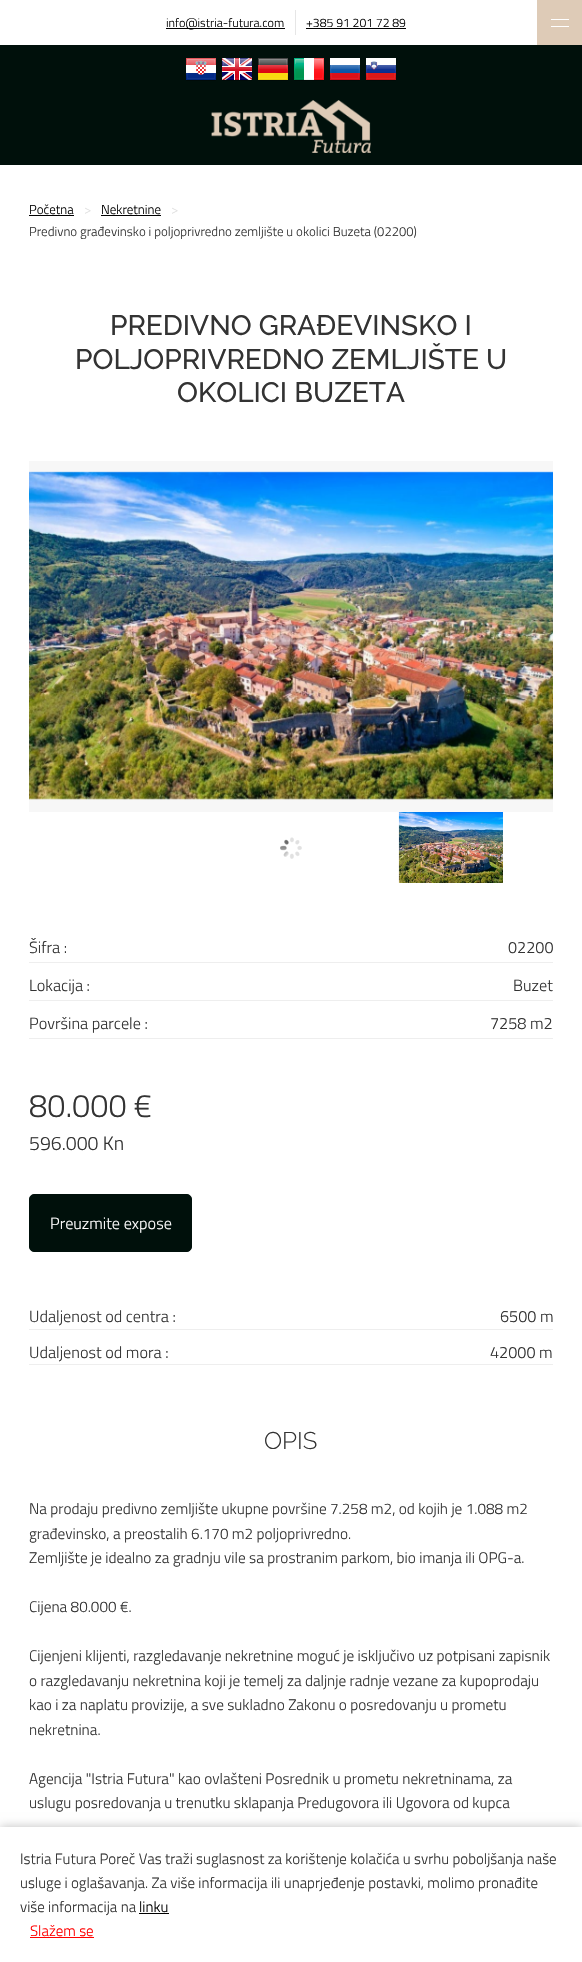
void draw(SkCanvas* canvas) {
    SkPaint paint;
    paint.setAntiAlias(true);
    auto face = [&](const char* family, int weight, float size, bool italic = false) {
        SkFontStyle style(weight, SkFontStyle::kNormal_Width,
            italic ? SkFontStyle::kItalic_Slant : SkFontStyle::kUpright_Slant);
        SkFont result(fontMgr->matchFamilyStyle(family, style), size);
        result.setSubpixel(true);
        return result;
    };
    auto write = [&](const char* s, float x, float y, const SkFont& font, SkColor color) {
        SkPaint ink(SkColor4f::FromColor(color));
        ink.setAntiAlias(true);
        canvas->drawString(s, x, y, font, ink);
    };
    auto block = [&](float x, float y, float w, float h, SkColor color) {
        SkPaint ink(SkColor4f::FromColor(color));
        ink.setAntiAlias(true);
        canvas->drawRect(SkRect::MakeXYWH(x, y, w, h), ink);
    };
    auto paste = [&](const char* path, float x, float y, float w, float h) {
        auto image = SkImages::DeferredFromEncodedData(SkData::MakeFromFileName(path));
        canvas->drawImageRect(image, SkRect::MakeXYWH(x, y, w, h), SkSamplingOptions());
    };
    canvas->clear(SK_ColorWHITE);
    block(0, 45, 582, 120, SkColorSetRGB(0, 16, 11));
    block(166, 28, 119, 1, SK_ColorBLACK);
    auto kFont1 = face("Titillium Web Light", 300, 12.25f);
    write("info@istria-futura.com", 166, 27, kFont1, SK_ColorBLACK);
    block(295, 10, 1, 25, SkColorSetRGB(230, 230, 230));
    write("+385 91 201 72 89", 306, 27, kFont1, SK_ColorBLACK);
    block(306, 28, 100, 1, SK_ColorBLACK);
    block(537, 0, 45, 45, SkColorSetRGB(222, 203, 183));
    block(551, 19, 18, 1, SK_ColorWHITE);
    block(551, 26, 18, 1, SK_ColorWHITE);
    paste("pic1.png", 186, 58, 30, 23);
    paste("pic2.png", 222, 58, 30, 23);
    paste("pic3.png", 258, 58, 30, 23);
    paste("pic4.png", 294, 58, 30, 23);
    paste("pic5.png", 330, 58, 30, 23);
    paste("pic6.png", 366, 58, 30, 23);
    paste("pic7.png", 211, 100, 160, 53);
    auto kFont2 = face("Titillium Web Light", 300, 13);
    write("Početna", 29, 214, kFont2, SK_ColorBLACK);
    block(29, 215, 45, 1, SK_ColorBLACK);
    write(">", 84, 214, kFont2, SkColorSetRGB(221, 221, 221));
    write("Nekretnine", 101, 214, kFont2, SK_ColorBLACK);
    block(101, 215, 60, 1, SK_ColorBLACK);
    write(">", 171, 214, kFont2, SkColorSetRGB(221, 221, 221));
    write("Predivno građevinsko i poljoprivredno zemljište u okolici Buzeta (02200)", 29, 236, kFont2, SkColorSetRGB(51, 51, 51));
    auto kFont3 = face("Raleway", 500, 28);
    write("PREDIVNO GRAĐEVINSKO I", 110, 335, kFont3, SkColorSetRGB(51, 51, 51));
    write("POLJOPRIVREDNO ZEMLJIŠTE U", 75, 369, kFont3, SkColorSetRGB(51, 51, 51));
    write("OKOLICI BUZETA", 177, 402, kFont3, SkColorSetRGB(51, 51, 51));
    block(29, 461, 524, 351, SkColorSetRGB(247, 247, 247));
    paste("pic8.png", 29, 471, 524, 329);
    paste("pic9.png", 280, 837, 22, 22);
    paste("pic10.png", 398, 812, 105, 71);
    block(29, 962, 524, 1, SkColorSetRGB(238, 238, 238));
    auto kFont4 = face("Titillium Web Light", 300, 16.25f);
    write("Šifra :", 29, 953, kFont4, SkColorSetRGB(51, 51, 51));
    write("02200", 508, 953, kFont4, SkColorSetRGB(51, 51, 51));
    block(29, 1000, 524, 1, SkColorSetRGB(238, 238, 238));
    write("Lokacija :", 29, 991, kFont4, SkColorSetRGB(51, 51, 51));
    write("Buzet", 513, 991, kFont4, SkColorSetRGB(51, 51, 51));
    block(29, 1038, 524, 1, SkColorSetRGB(238, 238, 238));
    write("Površina parcele :", 29, 1029, kFont4, SkColorSetRGB(51, 51, 51));
    write("7258 m2", 490, 1029, kFont4, SkColorSetRGB(51, 51, 51));
    auto kFont5 = face("Titillium Web Light", 300, 32.5f);
    write("80.000 €", 29, 1117, kFont5, SkColorSetRGB(51, 51, 51));
    auto kFont6 = face("Titillium Web Light", 300, 19.5f);
    write("596.000 Kn", 29, 1150, kFont6, SkColorSetRGB(51, 51, 51));
    paint.setColor(SkColorSetRGB(0, 16, 11));
    canvas->drawRoundRect(SkRect::MakeXYWH(29.5f, 1194.5f, 162, 57), 4.5f, 4.5f, paint);
    paint.setStyle(SkPaint::kStroke_Style);
    paint.setStrokeWidth(1);
    canvas->drawRoundRect(SkRect::MakeXYWH(29.5f, 1194.5f, 162, 57), 4.5f, 4.5f, paint);
    write("Preuzmite expose", 50, 1229, kFont4, SK_ColorWHITE);
    block(29, 1329, 524, 1, SkColorSetRGB(238, 238, 238));
    write("Udaljenost od centra :", 29, 1322, kFont4, SkColorSetRGB(51, 51, 51));
    write("6500 m", 500, 1322, kFont4, SkColorSetRGB(51, 51, 51));
    block(29, 1364, 524, 1, SkColorSetRGB(238, 238, 238));
    write("Udaljenost od mora :", 29, 1358, kFont4, SkColorSetRGB(51, 51, 51));
    write("42000 m", 490, 1358, kFont4, SkColorSetRGB(51, 51, 51));
    auto kFont7 = face("Raleway", 300, 24);
    write("OPIS", 264, 1449, kFont7, SkColorSetRGB(51, 51, 51));
    auto kFont8 = face("Titillium Web Light", 300, 15.3f);
    write("Na prodaju predivno zemljište ukupne površine 7.258 m2, od kojih je 1.088 m2", 29, 1514, kFont8, SkColorSetRGB(51, 51, 51));
    write("građevinsko, a preostalih 6.170 m2 poljoprivredno.", 29, 1539, kFont8, SkColorSetRGB(51, 51, 51));
    write("Zemljište je idealno za gradnju vile sa prostranim parkom, bio imanja ili OPG-a.", 29, 1563, kFont8, SkColorSetRGB(51, 51, 51));
    write("Cijena 80.000 €.", 29, 1612, kFont8, SkColorSetRGB(51, 51, 51));
    write("Cijenjeni klijenti, razgledavanje nekretnine moguć je isključivo uz potpisani zapisnik", 29, 1661, kFont8, SkColorSetRGB(51, 51, 51));
    write("o razgledavanju nekretnina koji je temelj za daljnje radnje vezane za kupoprodaju", 29, 1686, kFont8, SkColorSetRGB(51, 51, 51));
    write("kao i za naplatu provizije, a sve sukladno Zakonu o posredovanju u prometu", 29, 1710, kFont8, SkColorSetRGB(51, 51, 51));
    write("nekretnina.", 29, 1735, kFont8, SkColorSetRGB(51, 51, 51));
    write("Agencija \"Istria Futura\" kao ovlašteni Posrednik u prometu nekretninama, za", 29, 1784, kFont8, SkColorSetRGB(51, 51, 51));
    write("uslugu posredovanja u trenutku sklapanja Predugovora ili Ugovora od kupca", 29, 1808, kFont8, SkColorSetRGB(51, 51, 51));
    paint.setStyle(SkPaint::kFill_Style);
    paint.setColor(SkColorSetARGB(64, 0, 0, 0));
    paint.setMaskFilter(SkMaskFilter::MakeBlur(kNormal_SkBlurStyle, 5));
    canvas->drawRect(SkRect::MakeXYWH(0, 1827, 582, 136), paint);
    paint.setMaskFilter(nullptr);
    block(0, 1827, 582, 135, SK_ColorWHITE);
    auto kFont9 = face("Titillium Web Light", 300, 15);
    write("Istria Futura Poreč Vas traži suglasnost za korištenje kolačića u svrhu poboljšanja naše", 20, 1864, kFont9, SkColorSetRGB(51, 51, 51));
    write("usluge i oglašavanja. Za više informacija ili unaprjeđenje postavki, molimo pronađite", 20, 1888, kFont9, SkColorSetRGB(51, 51, 51));
    write("više informacija na", 20, 1912, kFont9, SkColorSetRGB(51, 51, 51));
    write("linku", 139, 1912, kFont9, SK_ColorBLACK);
    block(139, 1913, 30, 1, SK_ColorBLACK);
    write("Slažem se", 30, 1936, kFont9, SkColorSetRGB(255, 0, 0));
    block(30, 1937, 64, 1, SkColorSetRGB(255, 0, 0));
}
